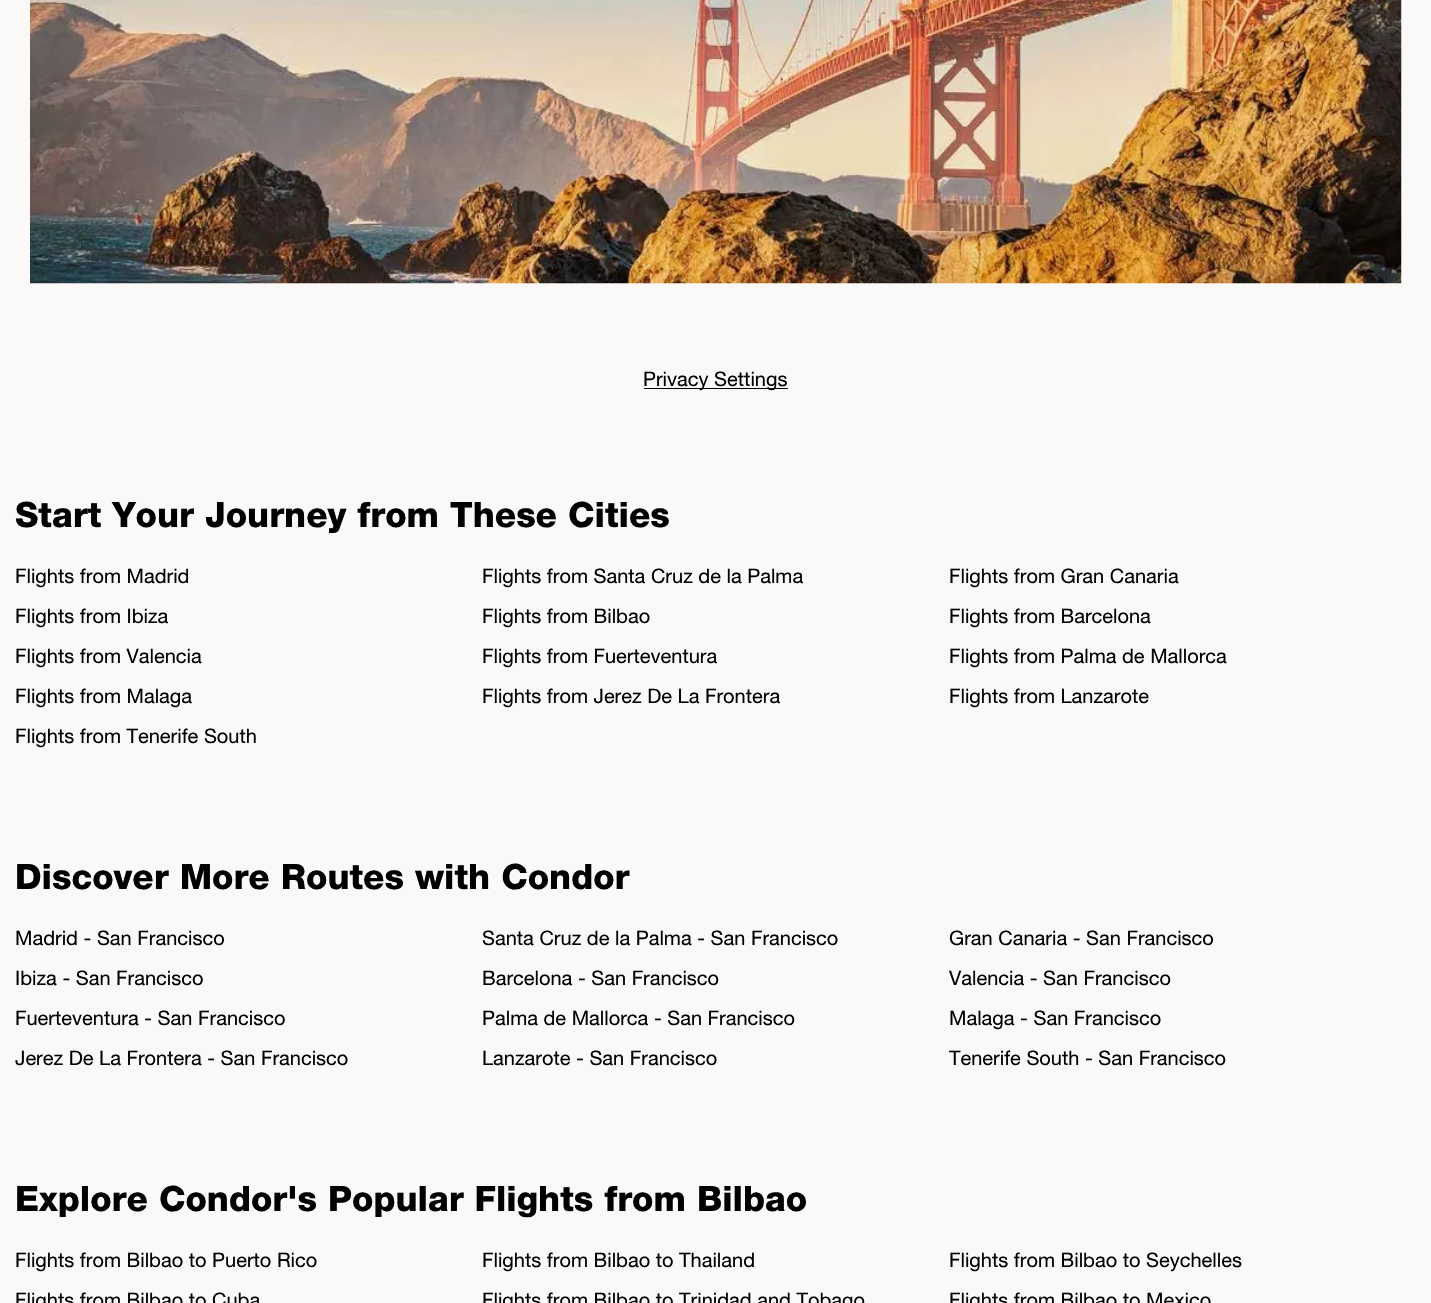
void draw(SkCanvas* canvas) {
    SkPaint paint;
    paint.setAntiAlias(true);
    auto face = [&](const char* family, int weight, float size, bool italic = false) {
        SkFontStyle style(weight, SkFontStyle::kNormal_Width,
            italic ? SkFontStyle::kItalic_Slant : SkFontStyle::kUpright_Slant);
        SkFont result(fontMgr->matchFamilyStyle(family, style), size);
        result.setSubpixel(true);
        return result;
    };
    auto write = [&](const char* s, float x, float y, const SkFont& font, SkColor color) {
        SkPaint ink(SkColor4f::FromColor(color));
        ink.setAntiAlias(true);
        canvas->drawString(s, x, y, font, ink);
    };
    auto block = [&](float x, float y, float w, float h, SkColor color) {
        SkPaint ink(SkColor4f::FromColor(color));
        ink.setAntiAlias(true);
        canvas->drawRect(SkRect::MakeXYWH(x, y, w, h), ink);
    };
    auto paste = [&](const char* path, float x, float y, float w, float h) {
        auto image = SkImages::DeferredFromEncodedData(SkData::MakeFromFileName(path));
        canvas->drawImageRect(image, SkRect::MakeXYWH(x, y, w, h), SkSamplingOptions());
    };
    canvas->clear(SkColorSetRGB(250, 249, 247));
    paste("pic1.png", 30, 0, 1372, 284);
    block(644, 388, 144, 1, SK_ColorBLACK);
    auto kFont1 = face("Helvetica Neue", 400, 20);
    write("Privacy Settings", 643, 386, kFont1, SK_ColorBLACK);
    auto kFont2 = face("Helvetica Neue", 800, 35);
    write("Start Your Journey from These Cities", 15, 527, kFont2, SK_ColorBLACK);
    write("Flights from Madrid", 15, 583, kFont1, SK_ColorBLACK);
    write("Flights from Santa Cruz de la Palma", 482, 583, kFont1, SK_ColorBLACK);
    write("Flights from Gran Canaria", 949, 583, kFont1, SK_ColorBLACK);
    write("Flights from Ibiza", 15, 623, kFont1, SK_ColorBLACK);
    write("Flights from Bilbao", 482, 623, kFont1, SK_ColorBLACK);
    write("Flights from Barcelona", 949, 623, kFont1, SK_ColorBLACK);
    write("Flights from Valencia", 15, 663, kFont1, SK_ColorBLACK);
    write("Flights from Fuerteventura", 482, 663, kFont1, SK_ColorBLACK);
    write("Flights from Palma de Mallorca", 949, 663, kFont1, SK_ColorBLACK);
    write("Flights from Malaga", 15, 703, kFont1, SK_ColorBLACK);
    write("Flights from Jerez De La Frontera", 482, 703, kFont1, SK_ColorBLACK);
    write("Flights from Lanzarote", 949, 703, kFont1, SK_ColorBLACK);
    write("Flights from Tenerife South", 15, 743, kFont1, SK_ColorBLACK);
    write("Discover More Routes with Condor", 15, 889, kFont2, SK_ColorBLACK);
    write("Madrid - San Francisco", 15, 945, kFont1, SK_ColorBLACK);
    write("Santa Cruz de la Palma - San Francisco", 482, 945, kFont1, SK_ColorBLACK);
    write("Gran Canaria - San Francisco", 949, 945, kFont1, SK_ColorBLACK);
    write("Ibiza - San Francisco", 15, 985, kFont1, SK_ColorBLACK);
    write("Barcelona - San Francisco", 482, 985, kFont1, SK_ColorBLACK);
    write("Valencia - San Francisco", 949, 985, kFont1, SK_ColorBLACK);
    write("Fuerteventura - San Francisco", 15, 1025, kFont1, SK_ColorBLACK);
    write("Palma de Mallorca - San Francisco", 482, 1025, kFont1, SK_ColorBLACK);
    write("Malaga - San Francisco", 949, 1025, kFont1, SK_ColorBLACK);
    write("Jerez De La Frontera - San Francisco", 15, 1065, kFont1, SK_ColorBLACK);
    write("Lanzarote - San Francisco", 482, 1065, kFont1, SK_ColorBLACK);
    write("Tenerife South - San Francisco", 949, 1065, kFont1, SK_ColorBLACK);
    write("Explore Condor's Popular Flights from Bilbao", 15, 1211, kFont2, SK_ColorBLACK);
    write("Flights from Bilbao to Puerto Rico", 15, 1267, kFont1, SK_ColorBLACK);
    write("Flights from Bilbao to Thailand", 482, 1267, kFont1, SK_ColorBLACK);
    write("Flights from Bilbao to Seychelles", 949, 1267, kFont1, SK_ColorBLACK);
    write("Flights from Bilbao to Cuba", 15, 1307, kFont1, SK_ColorBLACK);
    write("Flights from Bilbao to Trinidad and Tobago", 482, 1307, kFont1, SK_ColorBLACK);
    write("Flights from Bilbao to Mexico", 949, 1307, kFont1, SK_ColorBLACK);
}
